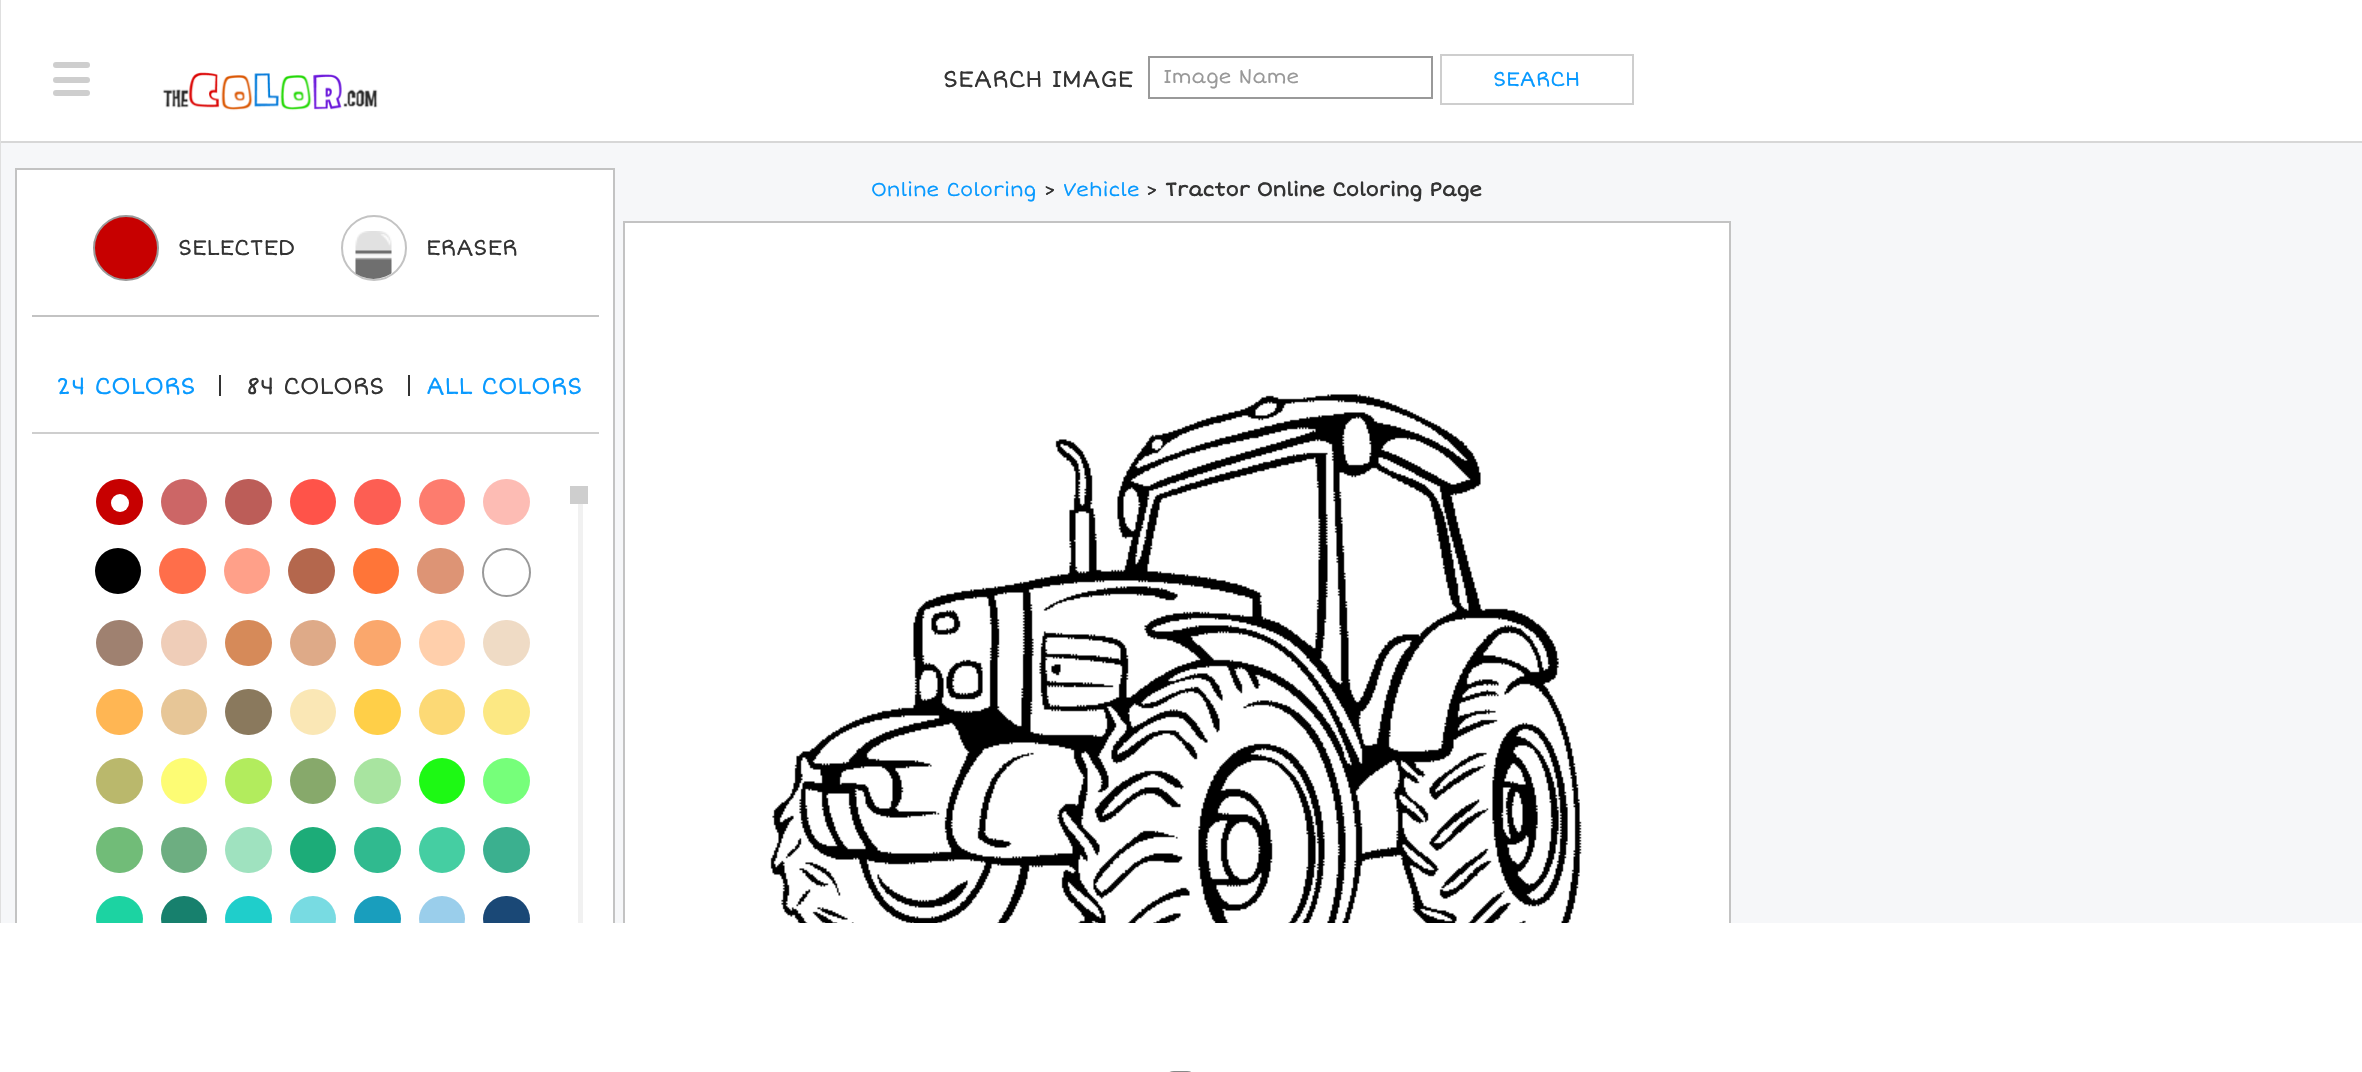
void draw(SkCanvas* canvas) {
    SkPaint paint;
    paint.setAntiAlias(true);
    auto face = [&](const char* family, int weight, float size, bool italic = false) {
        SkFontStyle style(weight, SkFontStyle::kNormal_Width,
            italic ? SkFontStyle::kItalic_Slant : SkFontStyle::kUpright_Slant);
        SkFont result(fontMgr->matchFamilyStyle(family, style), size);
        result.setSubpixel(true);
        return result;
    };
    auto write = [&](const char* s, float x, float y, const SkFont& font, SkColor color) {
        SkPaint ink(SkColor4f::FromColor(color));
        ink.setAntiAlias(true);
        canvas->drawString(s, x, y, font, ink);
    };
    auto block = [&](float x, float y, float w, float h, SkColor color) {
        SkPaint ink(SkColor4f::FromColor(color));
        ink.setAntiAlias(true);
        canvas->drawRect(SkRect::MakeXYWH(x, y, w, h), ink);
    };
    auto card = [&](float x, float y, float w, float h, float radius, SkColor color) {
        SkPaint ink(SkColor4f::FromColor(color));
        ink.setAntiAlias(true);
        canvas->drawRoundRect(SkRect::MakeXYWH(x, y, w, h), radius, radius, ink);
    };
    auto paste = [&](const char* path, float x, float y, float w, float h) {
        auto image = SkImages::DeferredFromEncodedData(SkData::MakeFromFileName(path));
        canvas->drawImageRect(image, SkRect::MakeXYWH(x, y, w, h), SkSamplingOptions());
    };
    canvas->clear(SkColorSetRGB(246, 247, 249));
    block(1, 0, 2361, 141, SK_ColorWHITE);
    block(0, 141, 2362, 2, SkColorSetRGB(215, 215, 215));
    block(0, 0, 1, 923, SkColorSetRGB(223, 223, 223));
    card(53, 62, 37, 6, 3, SkColorSetRGB(206, 206, 206));
    card(53, 77, 37, 6, 3, SkColorSetRGB(206, 206, 206));
    card(53, 90, 37, 6, 3, SkColorSetRGB(206, 206, 206));
    paste("pic1.png", 162, 72, 216, 39);
    auto kFont1 = face("Short Stack", 400, 24);
    write("SEARCH IMAGE", 943, 87, kFont1, SkColorSetRGB(51, 51, 51));
    paint.setStyle(SkPaint::kStroke_Style);
    paint.setStrokeWidth(2);
    paint.setColor(SkColorSetRGB(153, 153, 153));
    canvas->drawRect(SkRect::MakeXYWH(1149, 57, 283, 41), paint);
    auto kFont2 = face("Short Stack", 400, 19.5f);
    write("Image Name", 1163, 83, kFont2, SkColorSetRGB(153, 153, 153));
    paint.setColor(SkColorSetRGB(206, 206, 206));
    canvas->drawRect(SkRect::MakeXYWH(1441, 55, 192, 49), paint);
    auto kFont3 = face("Short Stack", 400, 21);
    write("SEARCH", 1493, 86, kFont3, SkColorSetRGB(9, 154, 255));
    write("Online Coloring", 871, 196, kFont2, SkColorSetRGB(9, 154, 255));
    write(">", 1044, 196, kFont2, SkColorSetRGB(51, 51, 51));
    write("Vehicle", 1063, 196, kFont2, SkColorSetRGB(9, 154, 255));
    write(">", 1146, 196, kFont2, SkColorSetRGB(51, 51, 51));
    auto kFont4 = face("Short Stack", 700, 19.5f);
    write("Tractor Online Coloring Page", 1165, 196, kFont4, SkColorSetRGB(51, 51, 51));
    block(625, 223, 1104, 700, SK_ColorWHITE);
    paint.setColor(SkColorSetRGB(195, 195, 195));
    canvas->drawRect(SkRect::MakeXYWH(624, 222, 1106, 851), paint);
    paste("pic2.png", 770, 394, 812, 529);
    block(17, 170, 596, 753, SK_ColorWHITE);
    canvas->drawRect(SkRect::MakeXYWH(16, 169, 598, 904), paint);
    block(32, 315, 567, 2, SkColorSetRGB(195, 195, 195));
    paint.setStyle(SkPaint::kFill_Style);
    paint.setColor(SkColorSetRGB(199, 0, 0));
    canvas->drawCircle(126, 248, 32, paint);
    paint.setStyle(SkPaint::kStroke_Style);
    paint.setColor(SkColorSetRGB(153, 153, 153));
    canvas->drawCircle(126, 248, 32, paint);
    auto kFont5 = face("Short Stack", 400, 22.5f);
    write("SELECTED", 178, 255, kFont5, SkColorSetRGB(51, 51, 51));
    paint.setColor(SkColorSetRGB(195, 195, 195));
    canvas->drawCircle(374, 248, 32, paint);
    paste("pic3.png", 355, 231, 37, 48);
    write("ERASER", 426, 255, kFont5, SkColorSetRGB(51, 51, 51));
    block(32, 432, 567, 2, SkColorSetRGB(206, 206, 206));
    write("24 COLORS", 56, 394, kFont1, SkColorSetRGB(9, 154, 255));
    block(219, 375, 2, 21, SkColorSetRGB(51, 51, 51));
    write("84 COLORS", 246, 394, kFont1, SkColorSetRGB(51, 51, 51));
    block(408, 375, 2, 21, SkColorSetRGB(51, 51, 51));
    write("ALL COLORS", 426, 394, kFont1, SkColorSetRGB(9, 154, 255));
    card(96, 479, 47, 46, 23, SkColorSetRGB(199, 0, 0));
    paint.setStyle(SkPaint::kFill_Style);
    paint.setColor(SK_ColorWHITE);
    canvas->drawCircle(120, 503, 9, paint);
    paint.setColor(SkColorSetRGB(204, 102, 102));
    canvas->drawCircle(184, 502, 23, paint);
    card(225, 479, 47, 46, 23, SkColorSetRGB(188, 93, 88));
    paint.setColor(SkColorSetRGB(255, 83, 73));
    canvas->drawCircle(313, 502, 23, paint);
    card(354, 479, 47, 46, 23, SkColorSetRGB(253, 94, 83));
    paint.setColor(SkColorSetRGB(253, 124, 110));
    canvas->drawCircle(442, 502, 23, paint);
    card(483, 479, 47, 46, 23, SkColorSetRGB(253, 188, 180));
    paint.setColor(SK_ColorBLACK);
    canvas->drawCircle(118, 571, 23, paint);
    card(159, 548, 47, 46, 23, SkColorSetRGB(255, 110, 74));
    paint.setColor(SkColorSetRGB(255, 160, 137));
    canvas->drawCircle(247, 571, 23, paint);
    card(288, 548, 47, 46, 23, SkColorSetRGB(180, 103, 77));
    paint.setColor(SkColorSetRGB(255, 117, 56));
    canvas->drawCircle(376, 571, 23, paint);
    card(417, 548, 47, 46, 23, SkColorSetRGB(221, 148, 117));
    paint.setStyle(SkPaint::kStroke_Style);
    paint.setColor(SkColorSetRGB(153, 153, 153));
    canvas->drawCircle(506.5f, 572.5f, 23.5f, paint);
    card(96, 620, 47, 46, 23, SkColorSetRGB(159, 129, 112));
    paint.setStyle(SkPaint::kFill_Style);
    paint.setColor(SkColorSetRGB(239, 205, 184));
    canvas->drawCircle(184, 643, 23, paint);
    card(225, 620, 47, 46, 23, SkColorSetRGB(214, 138, 89));
    paint.setColor(SkColorSetRGB(222, 170, 136));
    canvas->drawCircle(313, 643, 23, paint);
    card(354, 620, 47, 46, 23, SkColorSetRGB(250, 167, 108));
    paint.setColor(SkColorSetRGB(255, 207, 171));
    canvas->drawCircle(442, 643, 23, paint);
    card(483, 620, 47, 46, 23, SkColorSetRGB(239, 219, 197));
    card(96, 689, 47, 46, 23, SkColorSetRGB(255, 182, 83));
    paint.setColor(SkColorSetRGB(231, 198, 151));
    canvas->drawCircle(184, 712, 23, paint);
    card(225, 689, 47, 46, 23, SkColorSetRGB(138, 121, 93));
    paint.setColor(SkColorSetRGB(250, 231, 181));
    canvas->drawCircle(313, 712, 23, paint);
    card(354, 689, 47, 46, 23, SkColorSetRGB(255, 207, 72));
    paint.setColor(SkColorSetRGB(252, 217, 117));
    canvas->drawCircle(442, 712, 23, paint);
    card(483, 689, 47, 46, 23, SkColorSetRGB(252, 232, 131));
    card(96, 758, 47, 46, 23, SkColorSetRGB(186, 184, 108));
    paint.setColor(SkColorSetRGB(253, 252, 116));
    canvas->drawCircle(184, 781, 23, paint);
    card(225, 758, 47, 46, 23, SkColorSetRGB(178, 236, 93));
    paint.setColor(SkColorSetRGB(135, 169, 107));
    canvas->drawCircle(313, 781, 23, paint);
    card(354, 758, 47, 46, 23, SkColorSetRGB(168, 228, 160));
    paint.setColor(SkColorSetRGB(29, 249, 20));
    canvas->drawCircle(442, 781, 23, paint);
    card(483, 758, 47, 46, 23, SkColorSetRGB(118, 255, 122));
    card(96, 827, 47, 46, 23, SkColorSetRGB(113, 188, 120));
    paint.setColor(SkColorSetRGB(109, 174, 129));
    canvas->drawCircle(184, 850, 23, paint);
    card(225, 827, 47, 46, 23, SkColorSetRGB(159, 226, 191));
    paint.setColor(SkColorSetRGB(28, 172, 120));
    canvas->drawCircle(313, 850, 23, paint);
    card(354, 827, 47, 46, 23, SkColorSetRGB(48, 186, 143));
    paint.setColor(SkColorSetRGB(69, 206, 162));
    canvas->drawCircle(442, 850, 23, paint);
    card(483, 827, 47, 46, 23, SkColorSetRGB(59, 176, 143));
    card(96, 896, 47, 46, 23, SkColorSetRGB(28, 211, 162));
    paint.setColor(SkColorSetRGB(23, 128, 109));
    canvas->drawCircle(184, 919, 23, paint);
    card(225, 896, 47, 46, 23, SkColorSetRGB(31, 206, 203));
    paint.setColor(SkColorSetRGB(120, 219, 226));
    canvas->drawCircle(313, 919, 23, paint);
    card(354, 896, 47, 46, 23, SkColorSetRGB(25, 158, 189));
    paint.setColor(SkColorSetRGB(154, 206, 235));
    canvas->drawCircle(442, 919, 23, paint);
    card(483, 896, 47, 46, 23, SkColorSetRGB(26, 72, 118));
    block(578, 504, 5, 419, SkColorSetRGB(241, 241, 241));
    block(570, 486, 18, 18, SkColorSetRGB(206, 206, 206));
    block(0, 923, 2362, 149, SK_ColorWHITE);
    paint.setStyle(SkPaint::kStroke_Style);
    paint.setColor(SkColorSetRGB(249, 249, 249));
    canvas->drawRoundRect(SkRect::MakeXYWH(1165, 1072, 31, 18), 15.5f, 15.5f, paint);
    paint.setColor(SkColorSetRGB(136, 136, 136));
    canvas->drawRoundRect(SkRect::MakeXYWH(1165, 1072, 31, 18), 15.5f, 15.5f, paint);
}
